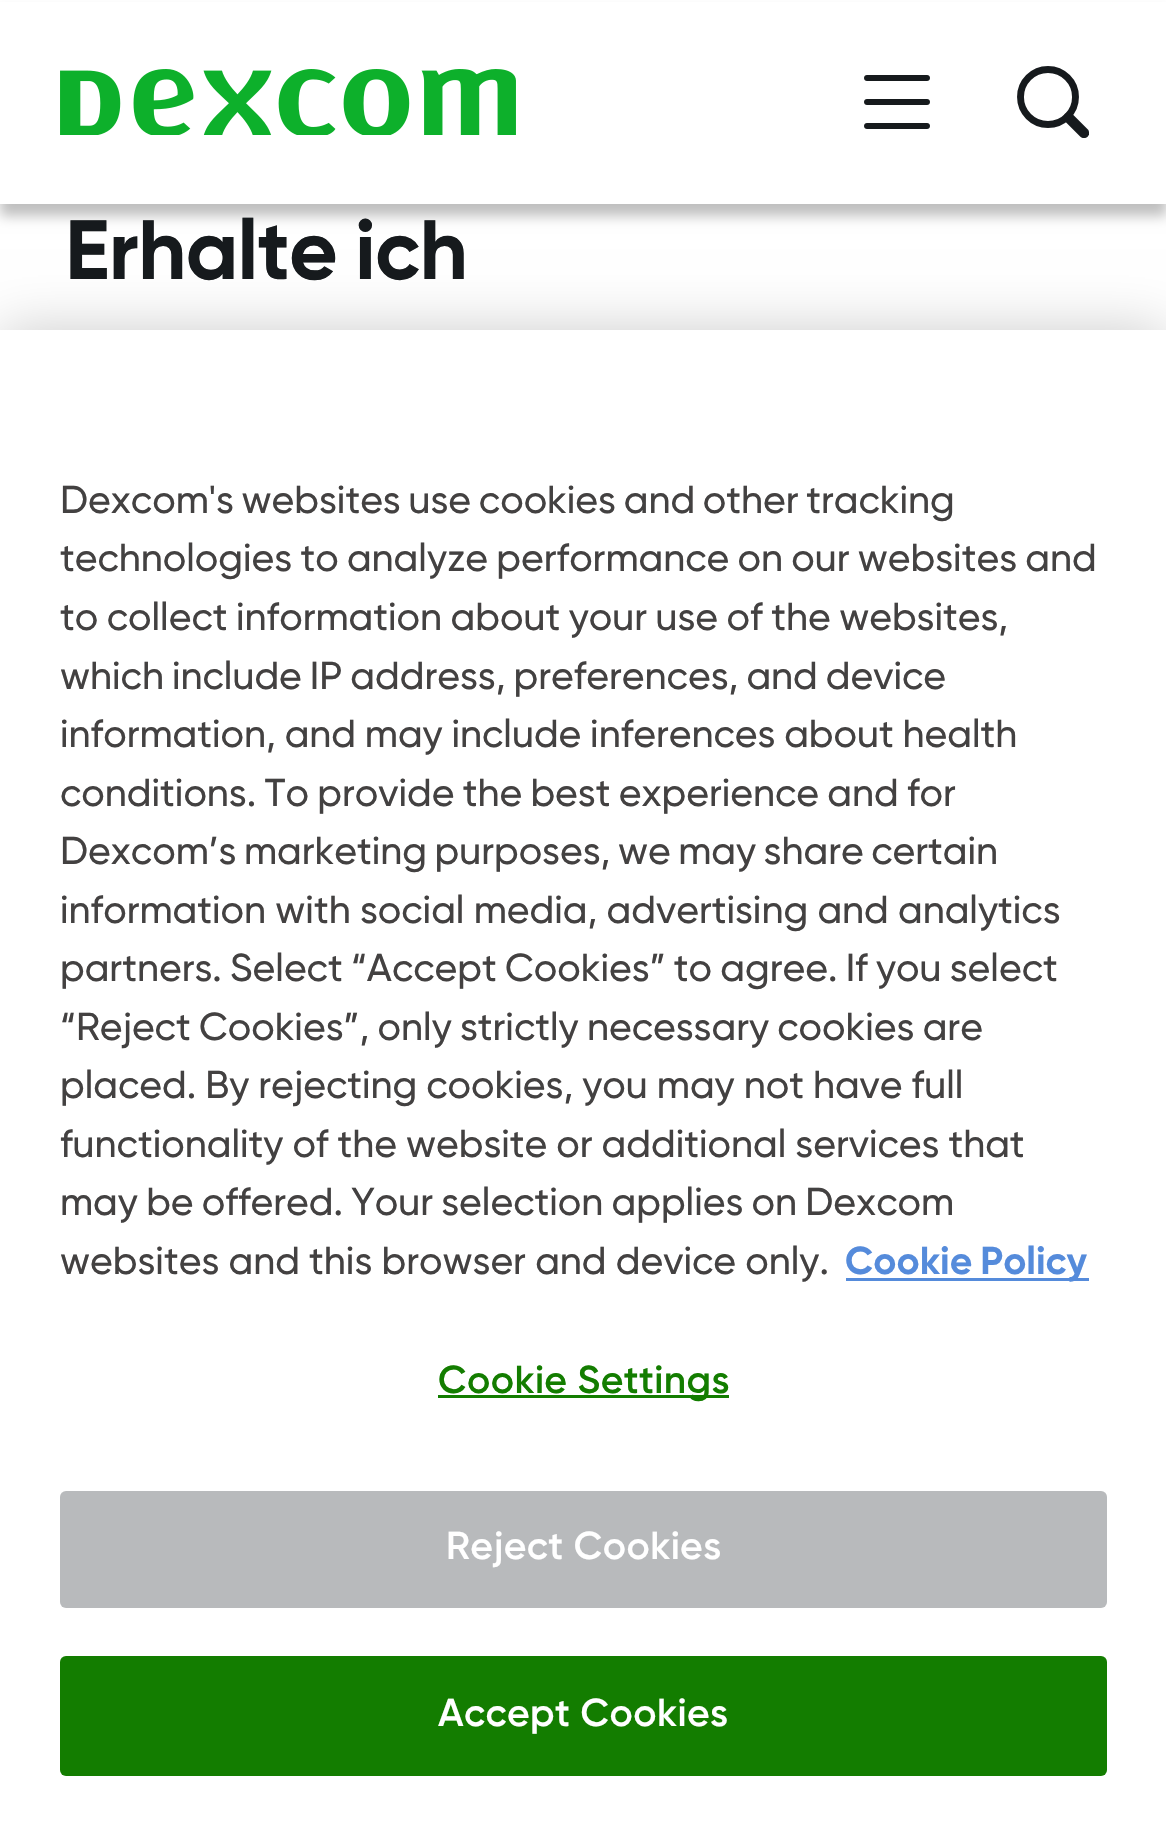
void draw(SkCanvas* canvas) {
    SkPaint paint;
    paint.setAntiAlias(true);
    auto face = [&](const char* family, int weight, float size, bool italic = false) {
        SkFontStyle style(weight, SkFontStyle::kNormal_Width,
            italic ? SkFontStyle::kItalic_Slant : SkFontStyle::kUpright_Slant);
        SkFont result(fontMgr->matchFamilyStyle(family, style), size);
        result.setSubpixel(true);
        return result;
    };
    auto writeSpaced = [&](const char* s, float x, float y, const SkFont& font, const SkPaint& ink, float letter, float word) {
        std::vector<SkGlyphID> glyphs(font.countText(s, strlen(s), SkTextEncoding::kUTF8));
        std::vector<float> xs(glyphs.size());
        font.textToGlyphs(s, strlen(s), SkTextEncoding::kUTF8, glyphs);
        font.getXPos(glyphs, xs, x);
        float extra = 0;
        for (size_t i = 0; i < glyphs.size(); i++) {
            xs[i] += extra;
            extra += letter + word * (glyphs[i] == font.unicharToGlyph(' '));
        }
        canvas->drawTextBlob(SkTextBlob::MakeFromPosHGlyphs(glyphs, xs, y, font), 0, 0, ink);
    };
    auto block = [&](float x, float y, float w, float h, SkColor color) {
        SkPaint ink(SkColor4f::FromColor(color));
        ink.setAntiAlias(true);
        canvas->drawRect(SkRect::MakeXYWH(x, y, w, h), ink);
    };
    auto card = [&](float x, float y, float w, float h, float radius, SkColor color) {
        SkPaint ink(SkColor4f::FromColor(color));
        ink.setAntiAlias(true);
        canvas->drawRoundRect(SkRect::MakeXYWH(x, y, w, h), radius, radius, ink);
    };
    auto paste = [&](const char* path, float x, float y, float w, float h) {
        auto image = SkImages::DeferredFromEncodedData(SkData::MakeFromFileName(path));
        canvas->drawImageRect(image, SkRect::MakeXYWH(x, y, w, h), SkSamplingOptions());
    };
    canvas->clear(SK_ColorWHITE);
    paint.setColor(SkColorSetARGB(64, 0, 0, 0));
    paint.setMaskFilter(SkMaskFilter::MakeBlur(kNormal_SkBlurStyle, 6));
    canvas->drawRect(SkRect::MakeXYWH(0, 12, 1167, 204), paint);
    paint.setMaskFilter(nullptr);
    block(0, 2, 1166, 202, SK_ColorWHITE);
    paste("pic1.png", 60, 69, 456, 66);
    paste("pic2.png", 864, 75, 66, 54);
    paint.setStyle(SkPaint::kStroke_Style);
    paint.setStrokeWidth(6.9f);
    paint.setColor(SkColorSetRGB(22, 26, 29));
    canvas->drawCircle(1048, 97, 27.5f, paint);
    canvas->save();
    canvas->clipRect(SkRect::MakeXYWH(1017, 66, 72, 72));
    paint.setStrokeWidth(10.3f);
    paint.setStrokeCap(SkPaint::kRound_Cap);
    canvas->drawPath(SkPathBuilder().moveTo(1068.5f, 117.5f).lineTo(1084, 133).detach(), paint);
    canvas->restore();
    auto kFont1 = face("Gilroy", 700, 84);
    paint.setStyle(SkPaint::kFill_Style);
    writeSpaced("Erhalte ich", 65, 279, kFont1, paint, -0.75f, -2.25f);
    paint.setColor(SkColorSetARGB(51, 0, 0, 0));
    paint.setMaskFilter(SkMaskFilter::MakeBlur(kNormal_SkBlurStyle, 27));
    canvas->drawRect(SkRect::MakeXYWH(0, 330, 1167, 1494), paint);
    paint.setMaskFilter(nullptr);
    block(0, 330, 1166, 1493, SK_ColorWHITE);
    auto kFont2 = face("Gilroy", 500, 39);
    paint.setColor(SkColorSetRGB(67, 65, 65));
    writeSpaced("Dexcom's websites use cookies and other tracking", 60, 513, kFont2, paint, 0, -2);
    writeSpaced("technologies to analyze performance on our websites and", 60, 571, kFont2, paint, 0, -1.5f);
    writeSpaced("to collect information about your use of the websites,", 60, 630, kFont2, paint, 0, -1.25f);
    writeSpaced("which include IP address, preferences, and device", 60, 689, kFont2, paint, 0, -1.75f);
    writeSpaced("information, and may include inferences about health", 60, 747, kFont2, paint, 0, -1);
    writeSpaced("conditions. To provide the best experience and for", 60, 806, kFont2, paint, 0, -1.5f);
    writeSpaced("Dexcom’s marketing purposes, we may share certain", 60, 864, kFont2, paint, 0, -2.25f);
    writeSpaced("information with social media, advertising and analytics", 60, 923, kFont2, paint, 0, -0.5f);
    writeSpaced("partners. Select “Accept Cookies” to agree. If you select", 60, 981, kFont2, paint, 0, -1.5f);
    writeSpaced("“Reject Cookies”, only strictly necessary cookies are", 60, 1040, kFont2, paint, 0, -1.5f);
    writeSpaced("placed. By rejecting cookies, you may not have full", 60, 1098, kFont2, paint, 0, -0.75f);
    writeSpaced("functionality of the website or additional services that", 60, 1157, kFont2, paint, 0, -0.75f);
    writeSpaced("may be offered. Your selection applies on Dexcom", 60, 1215, kFont2, paint, 0, -1.5f);
    writeSpaced("websites and this browser and device only.", 60, 1274, kFont2, paint, 0, -0.5f);
    block(846, 1278, 243, 3, SkColorSetRGB(85, 139, 219));
    auto kFont3 = face("Gilroy", 700, 39);
    paint.setColor(SkColorSetRGB(85, 139, 219));
    writeSpaced("Cookie Policy", 845, 1274, kFont3, paint, 0, -2);
    block(438, 1395, 291, 3, SkColorSetRGB(19, 125, 0));
    auto kFont4 = face("Gilroy", 600, 39);
    paint.setColor(SkColorSetRGB(19, 125, 0));
    writeSpaced("Cookie Settings", 438, 1393, kFont4, paint, 0.4f, 0);
    card(60, 1491, 1047, 117, 6, SkColorSetRGB(184, 186, 188));
    paint.setColor(SK_ColorWHITE);
    writeSpaced("Reject Cookies", 446, 1559, kFont4, paint, 0.4f, 0);
    card(60, 1656, 1047, 120, 6, SkColorSetRGB(19, 125, 0));
    writeSpaced("Accept Cookies", 438, 1726, kFont4, paint, 0.4f, 0);
}
